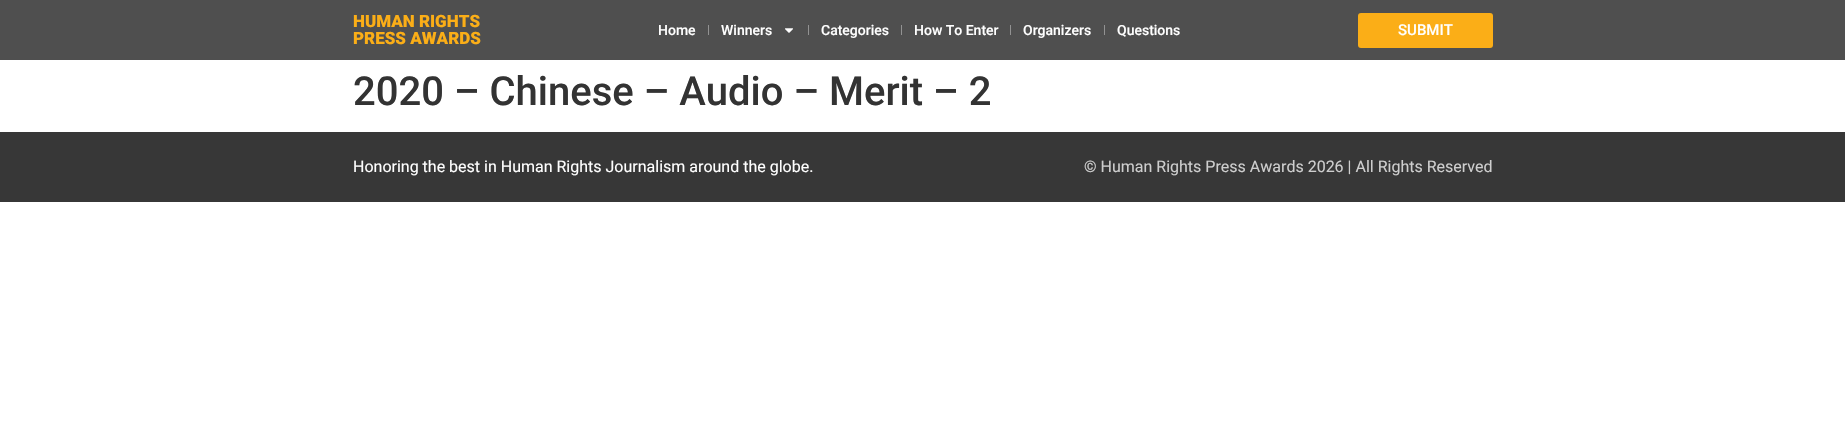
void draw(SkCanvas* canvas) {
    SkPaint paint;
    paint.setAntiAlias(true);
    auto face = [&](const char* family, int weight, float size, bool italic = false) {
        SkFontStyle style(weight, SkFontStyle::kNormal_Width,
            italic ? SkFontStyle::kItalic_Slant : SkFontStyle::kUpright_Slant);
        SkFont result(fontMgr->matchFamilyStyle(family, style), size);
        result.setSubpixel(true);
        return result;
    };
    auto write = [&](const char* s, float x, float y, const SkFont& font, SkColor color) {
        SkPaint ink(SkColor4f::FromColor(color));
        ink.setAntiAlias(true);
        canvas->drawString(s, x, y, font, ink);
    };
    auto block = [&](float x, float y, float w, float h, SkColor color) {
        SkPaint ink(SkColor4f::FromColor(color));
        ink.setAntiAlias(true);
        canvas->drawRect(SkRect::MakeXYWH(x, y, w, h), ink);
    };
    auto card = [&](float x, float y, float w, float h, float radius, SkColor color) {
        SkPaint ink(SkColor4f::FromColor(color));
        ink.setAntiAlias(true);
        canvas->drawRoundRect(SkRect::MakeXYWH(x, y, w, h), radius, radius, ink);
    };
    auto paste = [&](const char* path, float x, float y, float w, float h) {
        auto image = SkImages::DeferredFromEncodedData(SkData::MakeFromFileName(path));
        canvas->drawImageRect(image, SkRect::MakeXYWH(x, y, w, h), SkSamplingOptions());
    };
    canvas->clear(SK_ColorWHITE);
    block(0, 0, 1845, 60, SkColorSetRGB(79, 79, 79));
    auto kFont1 = face("Roboto", 900, 17);
    write("HUMAN RIGHTS", 353, 27, kFont1, SkColorSetRGB(251, 174, 23));
    write("PRESS AWARDS", 353, 44, kFont1, SkColorSetRGB(251, 174, 23));
    auto kFont2 = face("Roboto", 500, 14);
    write("Home", 658, 35, kFont2, SK_ColorWHITE);
    block(708, 25, 1, 10, SkColorSetRGB(146, 146, 146));
    write("Winners", 721, 35, kFont2, SK_ColorWHITE);
    paste("pic1.png", 785, 28, 8, 5);
    block(808, 25, 1, 10, SkColorSetRGB(146, 146, 146));
    write("Categories", 821, 35, kFont2, SK_ColorWHITE);
    block(901, 25, 1, 10, SkColorSetRGB(146, 146, 146));
    write("How To Enter", 914, 35, kFont2, SK_ColorWHITE);
    block(1010, 25, 1, 10, SkColorSetRGB(146, 146, 146));
    write("Organizers", 1023, 35, kFont2, SK_ColorWHITE);
    block(1104, 25, 1, 10, SkColorSetRGB(146, 146, 146));
    write("Questions", 1117, 35, kFont2, SK_ColorWHITE);
    card(1358, 13, 135, 35, 3, SkColorSetRGB(251, 174, 23));
    auto kFont3 = face("Roboto", 500, 15);
    write("SUBMIT", 1398, 35, kFont3, SK_ColorWHITE);
    auto kFont4 = face("Roboto", 500, 40);
    write("2020 – Chinese – Audio – Merit – 2", 353, 105, kFont4, SkColorSetRGB(51, 51, 51));
    block(0, 132, 1845, 70, SkColorSetRGB(55, 55, 55));
    auto kFont5 = face("Roboto", 400, 16);
    write("Honoring the best in Human Rights Journalism around the globe.", 353, 172, kFont5, SK_ColorWHITE);
    write("© Human Rights Press Awards 2026 | All Rights Reserved", 1084, 172, kFont5, SkColorSetRGB(206, 206, 206));
}
